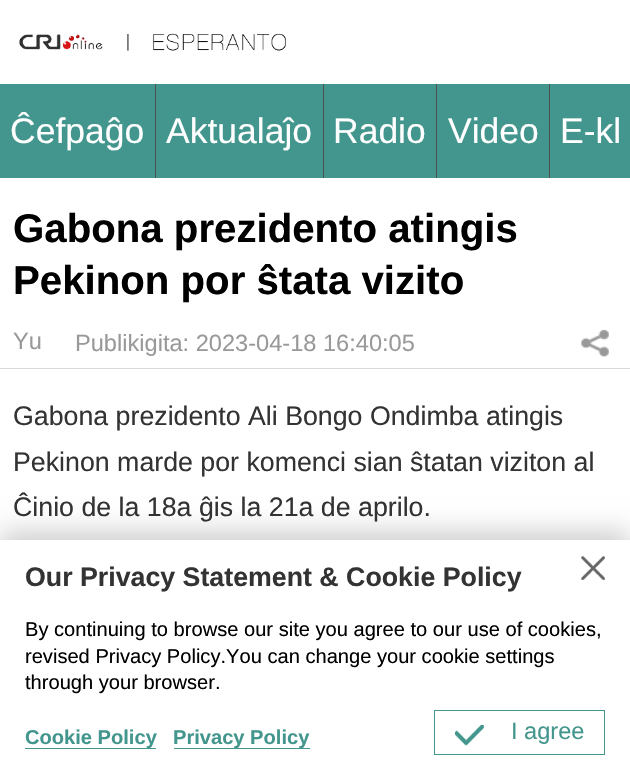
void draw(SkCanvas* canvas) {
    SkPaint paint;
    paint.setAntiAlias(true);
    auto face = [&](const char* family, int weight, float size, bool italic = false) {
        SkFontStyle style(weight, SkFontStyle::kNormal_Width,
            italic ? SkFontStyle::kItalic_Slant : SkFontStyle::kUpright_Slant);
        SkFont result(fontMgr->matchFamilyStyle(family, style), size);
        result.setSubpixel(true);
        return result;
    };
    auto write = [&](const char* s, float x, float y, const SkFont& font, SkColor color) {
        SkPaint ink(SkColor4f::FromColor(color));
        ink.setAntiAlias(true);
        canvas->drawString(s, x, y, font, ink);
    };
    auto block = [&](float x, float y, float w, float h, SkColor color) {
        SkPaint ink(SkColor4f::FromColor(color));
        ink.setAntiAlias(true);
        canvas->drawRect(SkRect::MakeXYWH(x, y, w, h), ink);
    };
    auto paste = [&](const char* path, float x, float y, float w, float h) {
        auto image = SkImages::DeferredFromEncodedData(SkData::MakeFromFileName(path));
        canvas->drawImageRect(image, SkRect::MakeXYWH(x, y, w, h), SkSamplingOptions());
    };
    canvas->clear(SK_ColorWHITE);
    paste("pic1.png", 19, 33, 267, 18);
    block(0, 84, 630, 94, SkColorSetRGB(67, 150, 141));
    auto kFont1 = face("Liberation Sans", 400, 35.5f);
    write("Ĉefpaĝo", 10, 143, kFont1, SK_ColorWHITE);
    block(155, 84, 1, 94, SkColorSetRGB(80, 80, 80));
    write("Aktualaĵo", 166, 143, kFont1, SK_ColorWHITE);
    block(323, 84, 1, 94, SkColorSetRGB(80, 80, 80));
    write("Radio", 333, 143, kFont1, SK_ColorWHITE);
    block(436, 84, 1, 94, SkColorSetRGB(80, 80, 80));
    write("Video", 448, 143, kFont1, SK_ColorWHITE);
    block(549, 84, 1, 94, SkColorSetRGB(80, 80, 80));
    write("E-kl", 560, 143, kFont1, SK_ColorWHITE);
    auto kFont2 = face("Liberation Sans", 700, 40.2f);
    write("Gabona prezidento atingis", 13, 242, kFont2, SK_ColorBLACK);
    write("Pekinon por ŝtata vizito", 13, 294, kFont2, SK_ColorBLACK);
    block(0, 368, 630, 1, SkColorSetRGB(217, 217, 217));
    auto kFont3 = face("Liberation Sans", 400, 23.6f);
    write("Yu", 13, 349, kFont3, SkColorSetRGB(153, 153, 153));
    write("Publikigita: 2023-04-18 16:40:05", 75, 351, kFont3, SkColorSetRGB(153, 153, 153));
    paste("pic2.png", 581, 329, 28, 28);
    auto kFont4 = face("Liberation Sans", 400, 26.75f);
    write("Gabona prezidento Ali Bongo Ondimba atingis", 13, 425, kFont4, SkColorSetRGB(51, 51, 51));
    write("Pekinon marde por komenci sian ŝtatan viziton al", 13, 471, kFont4, SkColorSetRGB(51, 51, 51));
    write("Ĉinio de la 18a ĝis la 21a de aprilo.", 13, 516, kFont4, SkColorSetRGB(51, 51, 51));
    paint.setColor(SkColorSetARGB(48, 0, 0, 0));
    paint.setMaskFilter(SkMaskFilter::MakeBlur(kNormal_SkBlurStyle, 12.5f));
    canvas->drawRect(SkRect::MakeXYWH(0, 531, 630, 233), paint);
    paint.setMaskFilter(nullptr);
    block(0, 540, 630, 232, SK_ColorWHITE);
    auto kFont5 = face("Liberation Sans", 700, 26.75f);
    write("Our Privacy Statement & Cookie Policy", 25, 586, kFont5, SkColorSetRGB(51, 51, 51));
    paste("pic3.png", 581, 556, 24, 24);
    auto kFont6 = face("Liberation Sans", 400, 20.1f);
    write("By continuing to browse our site you agree to our use of cookies,", 25, 636, kFont6, SK_ColorBLACK);
    write("revised Privacy Policy.You can change your cookie settings", 25, 663, kFont6, SK_ColorBLACK);
    write("through your browser.", 25, 689, kFont6, SK_ColorBLACK);
    auto kFont7 = face("Liberation Sans", 700, 20.1f);
    write("Cookie Policy", 25, 744, kFont7, SkColorSetRGB(67, 150, 141));
    block(25, 748, 131, 1, SkColorSetRGB(67, 150, 141));
    write("Privacy Policy", 173, 744, kFont7, SkColorSetRGB(67, 150, 141));
    block(174, 748, 136, 1, SkColorSetRGB(67, 150, 141));
    paint.setStyle(SkPaint::kStroke_Style);
    paint.setStrokeWidth(1);
    paint.setColor(SkColorSetRGB(67, 150, 141));
    canvas->drawRect(SkRect::MakeXYWH(434.5f, 710.5f, 170, 44), paint);
    paste("pic4.png", 455, 725, 29, 21);
    write("I agree", 511, 739, kFont3, SkColorSetRGB(67, 150, 141));
}
